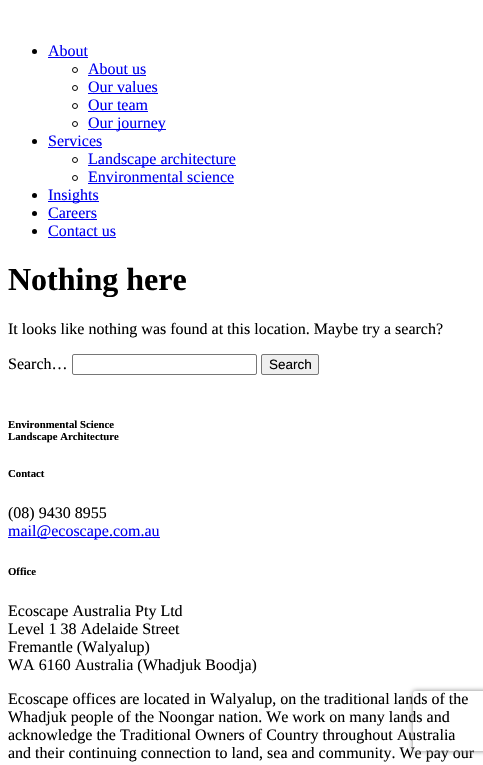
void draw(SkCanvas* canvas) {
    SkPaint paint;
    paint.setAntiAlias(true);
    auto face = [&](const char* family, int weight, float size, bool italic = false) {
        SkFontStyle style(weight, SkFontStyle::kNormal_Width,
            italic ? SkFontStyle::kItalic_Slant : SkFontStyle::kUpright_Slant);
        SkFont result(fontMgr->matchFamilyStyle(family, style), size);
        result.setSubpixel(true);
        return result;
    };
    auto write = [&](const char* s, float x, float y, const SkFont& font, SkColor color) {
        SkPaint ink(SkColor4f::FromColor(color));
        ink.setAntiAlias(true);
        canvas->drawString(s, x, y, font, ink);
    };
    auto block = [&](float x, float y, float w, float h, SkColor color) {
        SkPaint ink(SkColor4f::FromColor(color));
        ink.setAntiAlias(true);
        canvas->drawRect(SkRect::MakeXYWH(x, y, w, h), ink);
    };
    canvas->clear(SK_ColorWHITE);
    paint.setColor(SK_ColorBLACK);
    canvas->drawCircle(34.5f, 51.5f, 2.5f, paint);
    auto kFont1 = face("Liberation Serif", 400, 16);
    write("About", 48, 56, kFont1, SkColorSetRGB(0, 0, 238));
    block(48, 57, 40, 1, SkColorSetRGB(0, 0, 238));
    paint.setStyle(SkPaint::kStroke_Style);
    paint.setStrokeWidth(1);
    canvas->drawCircle(75, 70, 2.5f, paint);
    write("About us", 88, 74, kFont1, SkColorSetRGB(0, 0, 238));
    block(88, 75, 58, 1, SkColorSetRGB(0, 0, 238));
    canvas->drawCircle(75, 88, 2.5f, paint);
    write("Our values", 88, 92, kFont1, SkColorSetRGB(0, 0, 238));
    block(88, 93, 70, 1, SkColorSetRGB(0, 0, 238));
    canvas->drawCircle(75, 106, 2.5f, paint);
    write("Our team", 88, 110, kFont1, SkColorSetRGB(0, 0, 238));
    block(88, 111, 60, 1, SkColorSetRGB(0, 0, 238));
    canvas->drawCircle(75, 124, 2.5f, paint);
    block(88, 129, 78, 1, SkColorSetRGB(0, 0, 238));
    write("Our journey", 88, 128, kFont1, SkColorSetRGB(0, 0, 238));
    paint.setStyle(SkPaint::kFill_Style);
    canvas->drawCircle(34.5f, 141.5f, 2.5f, paint);
    write("Services", 48, 146, kFont1, SkColorSetRGB(0, 0, 238));
    block(48, 147, 54, 1, SkColorSetRGB(0, 0, 238));
    paint.setStyle(SkPaint::kStroke_Style);
    canvas->drawCircle(75, 160, 2.5f, paint);
    block(88, 165, 148, 1, SkColorSetRGB(0, 0, 238));
    write("Landscape architecture", 88, 164, kFont1, SkColorSetRGB(0, 0, 238));
    canvas->drawCircle(75, 178, 2.5f, paint);
    write("Environmental science", 88, 182, kFont1, SkColorSetRGB(0, 0, 238));
    block(88, 183, 146, 1, SkColorSetRGB(0, 0, 238));
    paint.setStyle(SkPaint::kFill_Style);
    canvas->drawCircle(34.5f, 195.5f, 2.5f, paint);
    block(48, 201, 51, 1, SkColorSetRGB(0, 0, 238));
    write("Insights", 48, 200, kFont1, SkColorSetRGB(0, 0, 238));
    canvas->drawCircle(34.5f, 213.5f, 2.5f, paint);
    write("Careers", 48, 218, kFont1, SkColorSetRGB(0, 0, 238));
    block(48, 219, 49, 1, SkColorSetRGB(0, 0, 238));
    canvas->drawCircle(34.5f, 231.5f, 2.5f, paint);
    write("Contact us", 48, 236, kFont1, SkColorSetRGB(0, 0, 238));
    block(48, 237, 68, 1, SkColorSetRGB(0, 0, 238));
    auto kFont2 = face("Liberation Serif", 700, 32);
    write("Nothing here", 8, 290, kFont2, SK_ColorBLACK);
    write("It looks like nothing was found at this location. Maybe try a search?", 8, 334, kFont1, SK_ColorBLACK);
    write("Search…", 8, 369, kFont1, SK_ColorBLACK);
    paint.setStyle(SkPaint::kStroke_Style);
    paint.setColor(SkColorSetRGB(118, 118, 118));
    canvas->drawRoundRect(SkRect::MakeXYWH(72.5f, 354.5f, 184, 20), 1.5f, 1.5f, paint);
    paint.setStyle(SkPaint::kFill_Style);
    paint.setColor(SkColorSetRGB(239, 239, 239));
    canvas->drawRoundRect(SkRect::MakeXYWH(261.5f, 354.5f, 57, 20), 1.5f, 1.5f, paint);
    paint.setStyle(SkPaint::kStroke_Style);
    paint.setColor(SkColorSetRGB(118, 118, 118));
    canvas->drawRoundRect(SkRect::MakeXYWH(261.5f, 354.5f, 57, 20), 1.5f, 1.5f, paint);
    auto kFont3 = face("Liberation Sans", 400, 13.5f);
    write("Search", 269, 369, kFont3, SK_ColorBLACK);
    auto kFont4 = face("Liberation Serif", 700, 10.75f);
    write("Environmental Science", 8, 428, kFont4, SK_ColorBLACK);
    write("Landscape Architecture", 8, 440, kFont4, SK_ColorBLACK);
    write("Contact", 8, 477, kFont4, SK_ColorBLACK);
    write("(08) 9430 8955", 8, 518, kFont1, SK_ColorBLACK);
    block(8, 537, 152, 1, SkColorSetRGB(0, 0, 238));
    write("mail@ecoscape.com.au", 8, 536, kFont1, SkColorSetRGB(0, 0, 238));
    write("Office", 8, 575, kFont4, SK_ColorBLACK);
    write("Ecoscape Australia Pty Ltd", 8, 616, kFont1, SK_ColorBLACK);
    write("Level 1 38 Adelaide Street", 8, 634, kFont1, SK_ColorBLACK);
    write("Fremantle (Walyalup)", 8, 652, kFont1, SK_ColorBLACK);
    write("WA 6160 Australia (Whadjuk Boodja)", 8, 670, kFont1, SK_ColorBLACK);
    write("Ecoscape offices are located in Walyalup, on the traditional lands of the", 8, 704, kFont1, SK_ColorBLACK);
    write("Whadjuk people of the Noongar nation. We work on many lands and", 8, 722, kFont1, SK_ColorBLACK);
    write("acknowledge the Traditional Owners of Country throughout Australia", 8, 740, kFont1, SK_ColorBLACK);
    write("and their continuing connection to land, sea and community. We pay our", 8, 758, kFont1, SK_ColorBLACK);
    canvas->save();
    canvas->clipPath(SkPathBuilder(SkPathFillType::kEvenOdd).moveTo(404, 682).lineTo(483, 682).lineTo(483, 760).lineTo(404, 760).close().moveTo(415, 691).lineTo(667, 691).cubicTo(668, 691, 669, 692, 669, 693).lineTo(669, 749).cubicTo(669, 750, 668, 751, 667, 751).lineTo(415, 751).cubicTo(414, 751, 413, 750, 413, 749).lineTo(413, 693).cubicTo(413, 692, 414, 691, 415, 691).close().detach(), true);
    paint.setStyle(SkPaint::kFill_Style);
    paint.setColor(SkColorSetRGB(128, 128, 128));
    paint.setMaskFilter(SkMaskFilter::MakeBlur(kNormal_SkBlurStyle, 2.5f));
    canvas->drawRoundRect(SkRect::MakeXYWH(413, 691, 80, 60), 2, 2, paint);
    paint.setMaskFilter(nullptr);
    canvas->restore();
}
